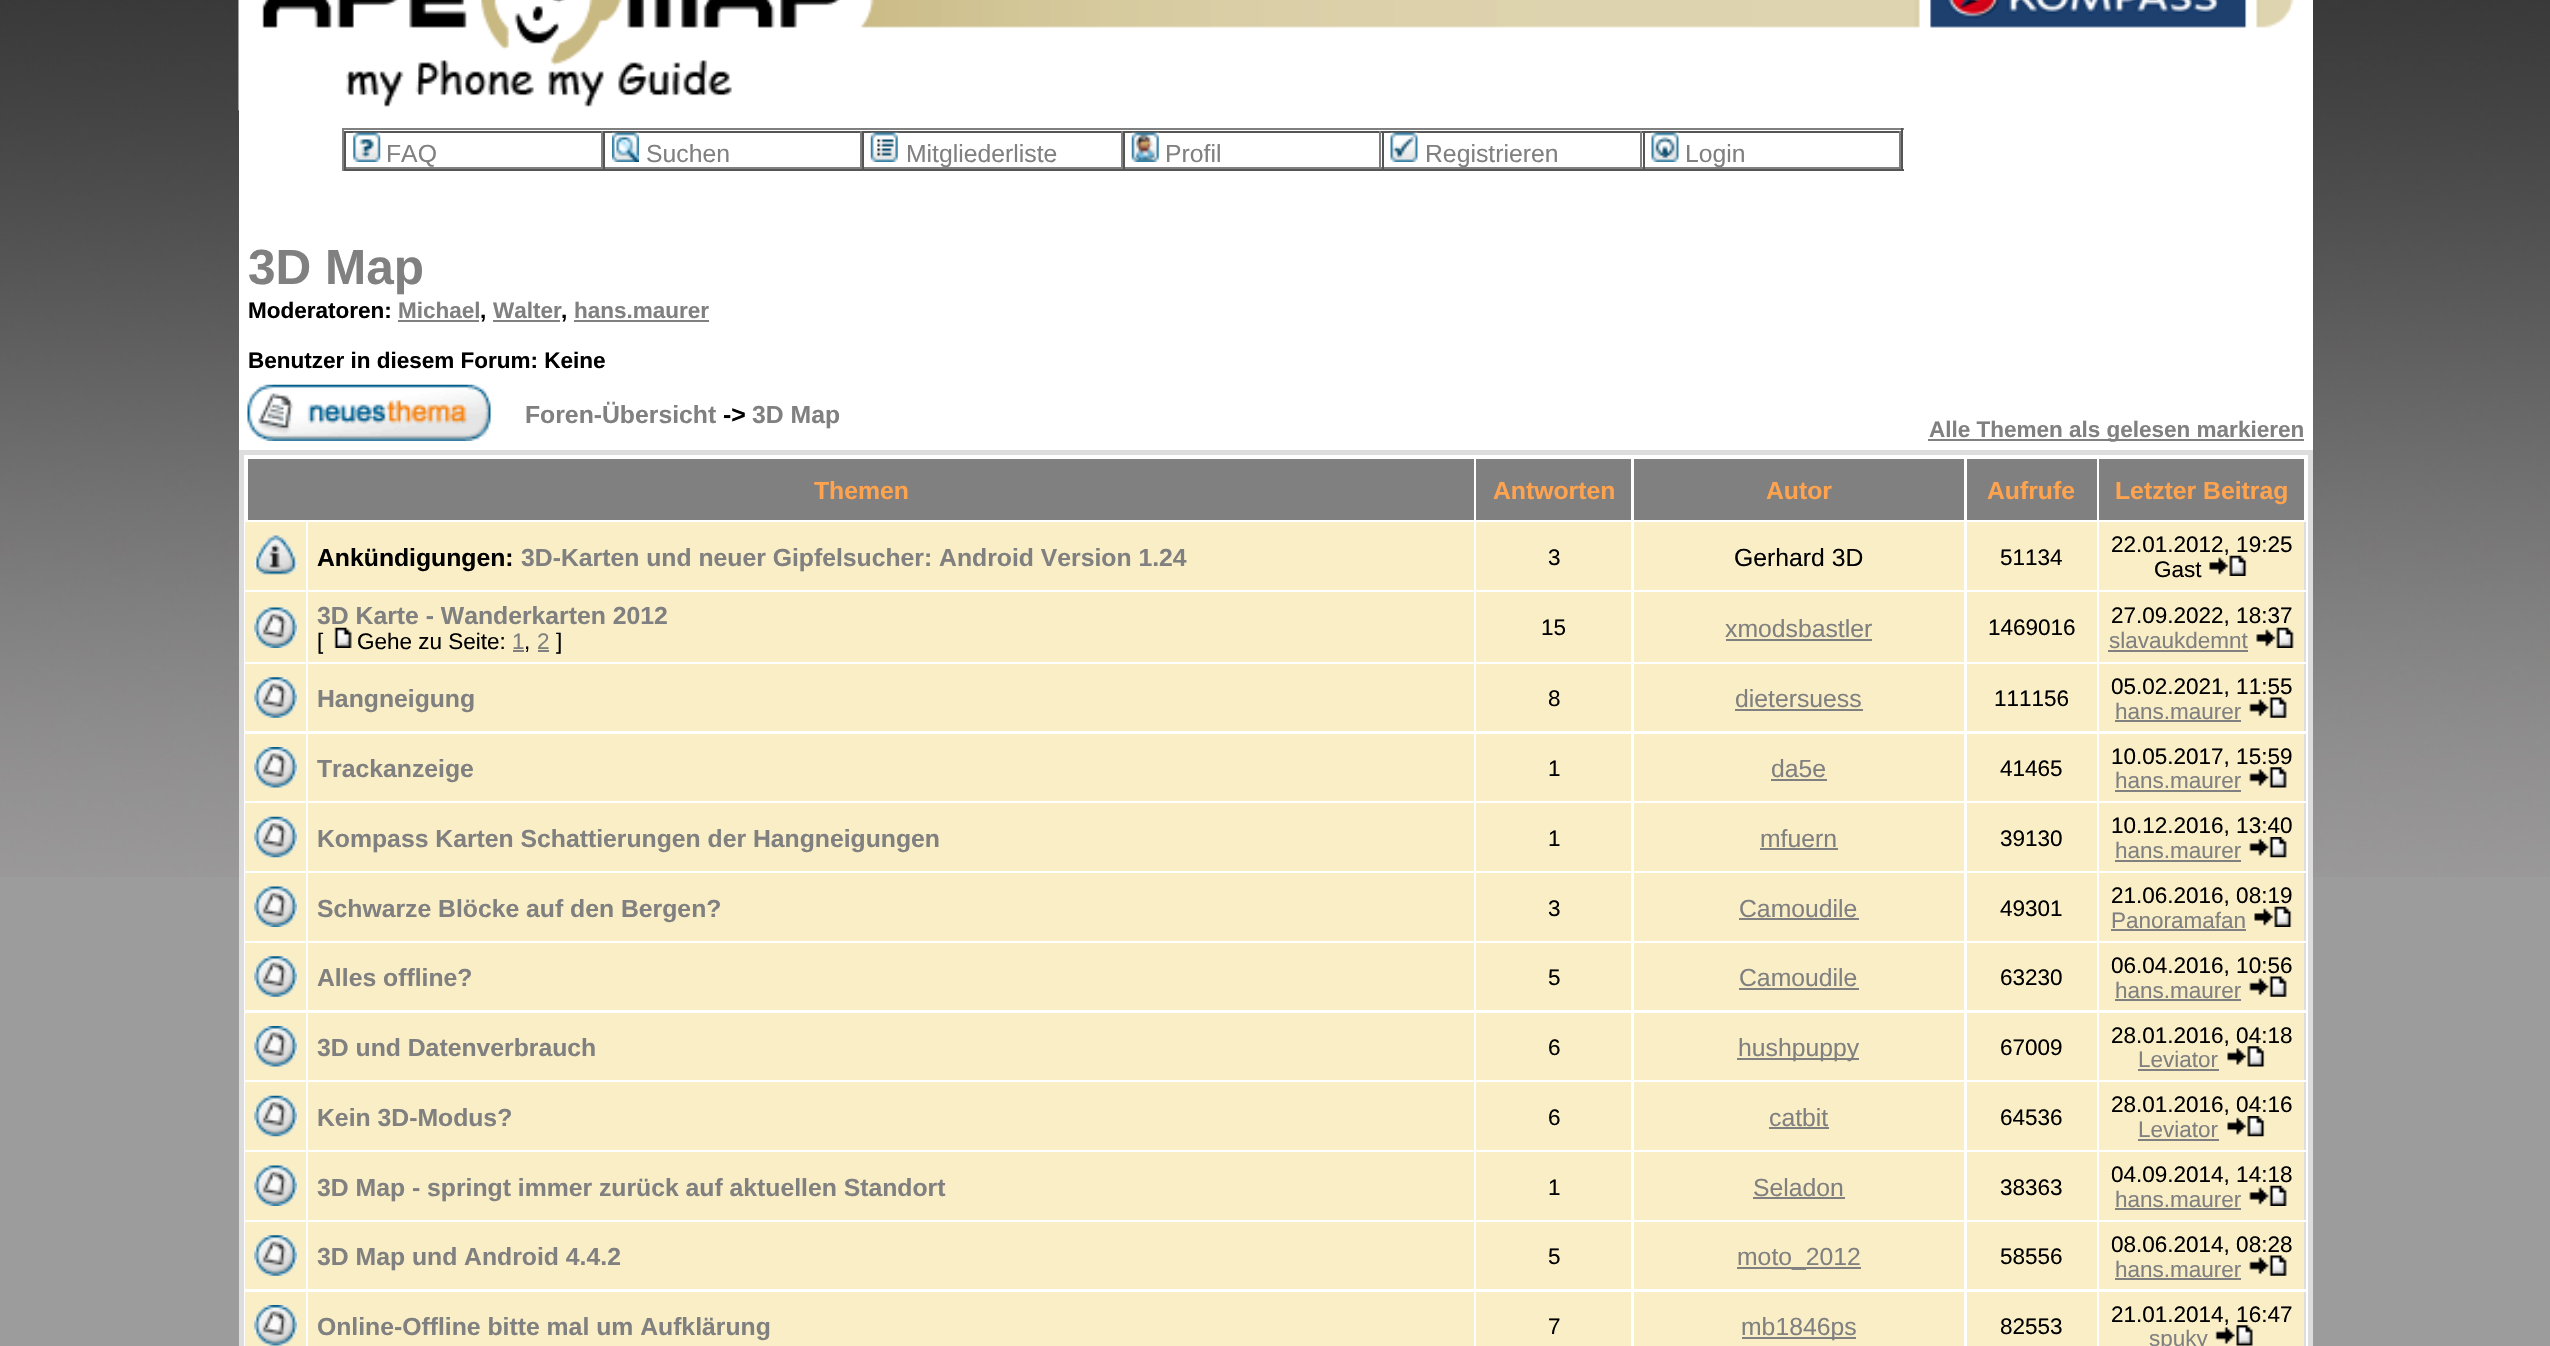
void draw(SkCanvas* canvas) {
    SkPaint paint;
    paint.setAntiAlias(true);
    auto face = [&](const char* family, int weight, float size, bool italic = false) {
        SkFontStyle style(weight, SkFontStyle::kNormal_Width,
            italic ? SkFontStyle::kItalic_Slant : SkFontStyle::kUpright_Slant);
        SkFont result(fontMgr->matchFamilyStyle(family, style), size);
        result.setSubpixel(true);
        return result;
    };
    auto write = [&](const char* s, float x, float y, const SkFont& font, SkColor color) {
        SkPaint ink(SkColor4f::FromColor(color));
        ink.setAntiAlias(true);
        canvas->drawString(s, x, y, font, ink);
    };
    auto block = [&](float x, float y, float w, float h, SkColor color) {
        SkPaint ink(SkColor4f::FromColor(color));
        ink.setAntiAlias(true);
        canvas->drawRect(SkRect::MakeXYWH(x, y, w, h), ink);
    };
    auto paste = [&](const char* path, float x, float y, float w, float h) {
        auto image = SkImages::DeferredFromEncodedData(SkData::MakeFromFileName(path));
        canvas->drawImageRect(image, SkRect::MakeXYWH(x, y, w, h), SkSamplingOptions());
    };
    canvas->clear(SkColorSetRGB(157, 156, 156));
    paste("pic1.png", 0, 0, 2550, 877);
    block(239, 0, 2074, 1346, SK_ColorWHITE);
    paste("pic2.png", 238, 0, 2056, 111);
    block(342, 128, 1562, 2, SkColorSetRGB(128, 128, 128));
    block(1901, 128, 2, 43, SkColorSetRGB(85, 85, 85));
    block(342, 169, 1562, 2, SkColorSetRGB(85, 85, 85));
    block(342, 128, 2, 43, SkColorSetRGB(128, 128, 128));
    block(344, 131, 1557, 2, SkColorSetRGB(85, 85, 85));
    block(601, 131, 2, 38, SkColorSetRGB(128, 128, 128));
    block(344, 167, 259, 2, SkColorSetRGB(128, 128, 128));
    block(344, 131, 2, 38, SkColorSetRGB(85, 85, 85));
    paste("pic3.png", 353, 132, 28, 30);
    auto kFont1 = face("Liberation Sans", 400, 24.75f);
    write("FAQ", 386, 162, kFont1, SkColorSetRGB(128, 128, 128));
    block(860, 131, 2, 38, SkColorSetRGB(128, 128, 128));
    block(603, 167, 259, 2, SkColorSetRGB(128, 128, 128));
    block(603, 131, 2, 38, SkColorSetRGB(85, 85, 85));
    paste("pic4.png", 612, 132, 27, 30);
    write("Suchen", 646, 162, kFont1, SkColorSetRGB(128, 128, 128));
    block(1121, 131, 2, 38, SkColorSetRGB(128, 128, 128));
    block(862, 167, 261, 2, SkColorSetRGB(128, 128, 128));
    block(862, 131, 2, 38, SkColorSetRGB(85, 85, 85));
    paste("pic5.png", 870, 132, 28, 30);
    write("Mitgliederliste", 906, 162, kFont1, SkColorSetRGB(128, 128, 128));
    block(1379, 131, 2, 38, SkColorSetRGB(128, 128, 128));
    block(1123, 167, 259, 2, SkColorSetRGB(128, 128, 128));
    block(1123, 131, 2, 38, SkColorSetRGB(85, 85, 85));
    paste("pic6.png", 1131, 132, 28, 30);
    write("Profil", 1165, 162, kFont1, SkColorSetRGB(128, 128, 128));
    block(1640, 131, 2, 38, SkColorSetRGB(128, 128, 128));
    block(1382, 167, 261, 2, SkColorSetRGB(128, 128, 128));
    block(1382, 131, 2, 38, SkColorSetRGB(85, 85, 85));
    paste("pic7.png", 1390, 132, 28, 30);
    write("Registrieren", 1425, 162, kFont1, SkColorSetRGB(128, 128, 128));
    block(1899, 131, 2, 38, SkColorSetRGB(128, 128, 128));
    block(1643, 167, 258, 2, SkColorSetRGB(128, 128, 128));
    block(1643, 131, 2, 38, SkColorSetRGB(85, 85, 85));
    paste("pic8.png", 1651, 132, 28, 30);
    write("Login", 1685, 162, kFont1, SkColorSetRGB(128, 128, 128));
    auto kFont2 = face("Liberation Sans", 700, 49.5f);
    write("3D Map", 248, 284, kFont2, SkColorSetRGB(128, 128, 128));
    auto kFont3 = face("Liberation Sans", 700, 22.5f);
    write("Moderatoren:", 248, 318, kFont3, SK_ColorBLACK);
    write("Michael", 398, 318, kFont3, SkColorSetRGB(128, 128, 128));
    write(",", 480, 318, kFont3, SK_ColorBLACK);
    block(398, 320, 81, 2, SkColorSetRGB(128, 128, 128));
    write("Walter", 493, 318, kFont3, SkColorSetRGB(128, 128, 128));
    write(",", 561, 318, kFont3, SK_ColorBLACK);
    block(493, 320, 67, 2, SkColorSetRGB(128, 128, 128));
    block(574, 320, 135, 2, SkColorSetRGB(128, 128, 128));
    write("hans.maurer", 574, 318, kFont3, SkColorSetRGB(128, 128, 128));
    write("Benutzer in diesem Forum: Keine", 248, 368, kFont3, SK_ColorBLACK);
    paste("pic9.png", 247, 384, 244, 57);
    auto kFont4 = face("Liberation Sans", 700, 24.75f);
    write("Foren-Übersicht", 525, 423, kFont4, SkColorSetRGB(128, 128, 128));
    write("->", 723, 423, kFont4, SK_ColorBLACK);
    write("3D Map", 752, 423, kFont4, SkColorSetRGB(128, 128, 128));
    block(1928, 439, 376, 2, SkColorSetRGB(128, 128, 128));
    write("Alle Themen als gelesen markieren", 1929, 437, kFont3, SkColorSetRGB(128, 128, 128));
    paint.setStyle(SkPaint::kStroke_Style);
    paint.setStrokeWidth(5);
    paint.setColor(SkColorSetRGB(221, 221, 221));
    canvas->drawRect(SkRect::MakeXYWH(241.5f, 452.5f, 2069, 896), paint);
    block(248, 459, 1226, 61, SkColorSetRGB(128, 128, 128));
    write("Themen", 814, 499, kFont4, SkColorSetRGB(255, 163, 79));
    block(1476, 459, 155, 61, SkColorSetRGB(128, 128, 128));
    write("Antworten", 1493, 499, kFont4, SkColorSetRGB(255, 163, 79));
    block(1634, 459, 330, 61, SkColorSetRGB(128, 128, 128));
    write("Autor", 1766, 499, kFont4, SkColorSetRGB(255, 163, 79));
    block(1967, 459, 130, 61, SkColorSetRGB(128, 128, 128));
    write("Aufrufe", 1987, 499, kFont4, SkColorSetRGB(255, 163, 79));
    block(2099, 459, 205, 61, SkColorSetRGB(128, 128, 128));
    write("Letzter Beitrag", 2115, 499, kFont4, SkColorSetRGB(255, 163, 79));
    block(245, 522, 61, 68, SkColorSetRGB(249, 238, 198));
    paste("pic10.png", 254, 535, 43, 40);
    block(308, 522, 1166, 68, SkColorSetRGB(249, 238, 198));
    write("Ankündigungen:", 317, 566, kFont4, SK_ColorBLACK);
    write("3D-Karten und neuer Gipfelsucher: Android Version 1.24", 521, 566, kFont4, SkColorSetRGB(128, 128, 128));
    block(1476, 522, 155, 68, SkColorSetRGB(249, 238, 198));
    auto kFont5 = face("Liberation Sans", 400, 22.5f);
    write("3", 1548, 565, kFont5, SK_ColorBLACK);
    block(1634, 522, 330, 68, SkColorSetRGB(249, 238, 198));
    write("Gerhard 3D", 1734, 566, kFont1, SK_ColorBLACK);
    block(1967, 522, 130, 68, SkColorSetRGB(249, 238, 198));
    write("51134", 2000, 565, kFont5, SK_ColorBLACK);
    block(2099, 522, 205, 68, SkColorSetRGB(249, 238, 198));
    block(2304, 522, 2, 68, SkColorSetRGB(221, 221, 221));
    write("22.01.2012, 19:25", 2111, 552, kFont5, SK_ColorBLACK);
    write("Gast", 2154, 577, kFont5, SK_ColorBLACK);
    paste("pic11.png", 2209, 555, 38, 21);
    block(245, 592, 61, 70, SkColorSetRGB(249, 238, 198));
    paste("pic12.png", 254, 607, 43, 41);
    block(308, 592, 1166, 70, SkColorSetRGB(249, 238, 198));
    write("3D Karte - Wanderkarten 2012", 317, 624, kFont4, SkColorSetRGB(128, 128, 128));
    write("[", 317, 649, kFont5, SK_ColorBLACK);
    paste("pic13.png", 334, 627, 18, 21);
    write("Gehe zu Seite:", 357, 649, kFont5, SK_ColorBLACK);
    write("1", 512, 649, kFont5, SkColorSetRGB(128, 128, 128));
    write(",", 524, 649, kFont5, SK_ColorBLACK);
    block(513, 650, 11, 2, SkColorSetRGB(128, 128, 128));
    block(538, 650, 11, 2, SkColorSetRGB(128, 128, 128));
    write("2", 537, 649, kFont5, SkColorSetRGB(128, 128, 128));
    write("]", 556, 649, kFont5, SK_ColorBLACK);
    block(1476, 592, 155, 70, SkColorSetRGB(249, 238, 198));
    write("15", 1541, 635, kFont5, SK_ColorBLACK);
    block(1634, 592, 330, 70, SkColorSetRGB(249, 238, 198));
    write("xmodsbastler", 1725, 637, kFont1, SkColorSetRGB(128, 128, 128));
    block(1726, 639, 146, 2, SkColorSetRGB(128, 128, 128));
    block(1967, 592, 130, 70, SkColorSetRGB(249, 238, 198));
    write("1469016", 1988, 635, kFont5, SK_ColorBLACK);
    block(2099, 592, 205, 70, SkColorSetRGB(249, 238, 198));
    block(2304, 592, 2, 70, SkColorSetRGB(221, 221, 221));
    write("27.09.2022, 18:37", 2111, 623, kFont5, SK_ColorBLACK);
    write("slavaukdemnt", 2109, 648, kFont5, SkColorSetRGB(128, 128, 128));
    block(2108, 650, 140, 2, SkColorSetRGB(128, 128, 128));
    paste("pic14.png", 2256, 627, 38, 21);
    block(245, 664, 61, 67, SkColorSetRGB(249, 238, 198));
    paste("pic15.png", 254, 677, 43, 41);
    block(308, 664, 1166, 67, SkColorSetRGB(249, 238, 198));
    write("Hangneigung", 317, 707, kFont4, SkColorSetRGB(128, 128, 128));
    block(1476, 664, 155, 67, SkColorSetRGB(249, 238, 198));
    write("8", 1548, 706, kFont5, SK_ColorBLACK);
    block(1634, 664, 330, 67, SkColorSetRGB(249, 238, 198));
    write("dietersuess", 1735, 707, kFont1, SkColorSetRGB(128, 128, 128));
    block(1735, 709, 128, 2, SkColorSetRGB(128, 128, 128));
    block(1967, 664, 130, 67, SkColorSetRGB(249, 238, 198));
    write("111156", 1994, 706, kFont5, SK_ColorBLACK);
    block(2099, 664, 205, 67, SkColorSetRGB(249, 238, 198));
    block(2304, 664, 2, 67, SkColorSetRGB(221, 221, 221));
    write("05.02.2021, 11:55", 2111, 694, kFont5, SK_ColorBLACK);
    write("hans.maurer", 2115, 719, kFont5, SkColorSetRGB(128, 128, 128));
    block(2115, 720, 126, 2, SkColorSetRGB(128, 128, 128));
    paste("pic16.png", 2249, 697, 38, 21);
    block(245, 734, 61, 67, SkColorSetRGB(249, 238, 198));
    paste("pic17.png", 254, 747, 43, 41);
    block(308, 734, 1166, 67, SkColorSetRGB(249, 238, 198));
    write("Trackanzeige", 317, 777, kFont4, SkColorSetRGB(128, 128, 128));
    block(1476, 734, 155, 67, SkColorSetRGB(249, 238, 198));
    write("1", 1548, 776, kFont5, SK_ColorBLACK);
    block(1634, 734, 330, 67, SkColorSetRGB(249, 238, 198));
    write("da5e", 1771, 777, kFont1, SkColorSetRGB(128, 128, 128));
    block(1771, 779, 56, 2, SkColorSetRGB(128, 128, 128));
    block(1967, 734, 130, 67, SkColorSetRGB(249, 238, 198));
    write("41465", 2000, 776, kFont5, SK_ColorBLACK);
    block(2099, 734, 205, 67, SkColorSetRGB(249, 238, 198));
    block(2304, 734, 2, 67, SkColorSetRGB(221, 221, 221));
    write("10.05.2017, 15:59", 2111, 764, kFont5, SK_ColorBLACK);
    write("hans.maurer", 2115, 788, kFont5, SkColorSetRGB(128, 128, 128));
    block(2115, 790, 126, 2, SkColorSetRGB(128, 128, 128));
    paste("pic18.png", 2249, 767, 38, 21);
    block(245, 803, 61, 68, SkColorSetRGB(249, 238, 198));
    paste("pic19.png", 254, 816, 43, 42);
    block(308, 803, 1166, 68, SkColorSetRGB(249, 238, 198));
    write("Kompass Karten Schattierungen der Hangneigungen", 317, 847, kFont4, SkColorSetRGB(128, 128, 128));
    block(1476, 803, 155, 68, SkColorSetRGB(249, 238, 198));
    write("1", 1548, 846, kFont5, SK_ColorBLACK);
    block(1634, 803, 330, 68, SkColorSetRGB(249, 238, 198));
    write("mfuern", 1760, 847, kFont1, SkColorSetRGB(128, 128, 128));
    block(1760, 848, 78, 2, SkColorSetRGB(128, 128, 128));
    block(1967, 803, 130, 68, SkColorSetRGB(249, 238, 198));
    write("39130", 2000, 846, kFont5, SK_ColorBLACK);
    block(2099, 803, 205, 68, SkColorSetRGB(249, 238, 198));
    block(2304, 803, 2, 68, SkColorSetRGB(221, 221, 221));
    write("10.12.2016, 13:40", 2111, 833, kFont5, SK_ColorBLACK);
    write("hans.maurer", 2115, 858, kFont5, SkColorSetRGB(128, 128, 128));
    block(2115, 860, 126, 2, SkColorSetRGB(128, 128, 128));
    paste("pic20.png", 2249, 837, 38, 21);
    block(245, 873, 61, 68, SkColorSetRGB(249, 238, 198));
    paste("pic12.png", 254, 886, 43, 41);
    block(308, 873, 1166, 68, SkColorSetRGB(249, 238, 198));
    write("Schwarze Blöcke auf den Bergen?", 317, 917, kFont4, SkColorSetRGB(128, 128, 128));
    block(1476, 873, 155, 68, SkColorSetRGB(249, 238, 198));
    write("3", 1548, 916, kFont5, SK_ColorBLACK);
    block(1634, 873, 330, 68, SkColorSetRGB(249, 238, 198));
    write("Camoudile", 1739, 917, kFont1, SkColorSetRGB(128, 128, 128));
    block(1739, 918, 120, 2, SkColorSetRGB(128, 128, 128));
    block(1967, 873, 130, 68, SkColorSetRGB(249, 238, 198));
    write("49301", 2000, 916, kFont5, SK_ColorBLACK);
    block(2099, 873, 205, 68, SkColorSetRGB(249, 238, 198));
    block(2304, 873, 2, 68, SkColorSetRGB(221, 221, 221));
    write("21.06.2016, 08:19", 2111, 903, kFont5, SK_ColorBLACK);
    write("Panoramafan", 2111, 928, kFont5, SkColorSetRGB(128, 128, 128));
    block(2111, 929, 135, 2, SkColorSetRGB(128, 128, 128));
    paste("pic21.png", 2254, 906, 38, 21);
    block(245, 943, 61, 67, SkColorSetRGB(249, 238, 198));
    paste("pic22.png", 254, 956, 43, 41);
    block(308, 943, 1166, 67, SkColorSetRGB(249, 238, 198));
    write("Alles offline?", 317, 986, kFont4, SkColorSetRGB(128, 128, 128));
    block(1476, 943, 155, 67, SkColorSetRGB(249, 238, 198));
    write("5", 1548, 985, kFont5, SK_ColorBLACK);
    block(1634, 943, 330, 67, SkColorSetRGB(249, 238, 198));
    write("Camoudile", 1739, 986, kFont1, SkColorSetRGB(128, 128, 128));
    block(1739, 988, 120, 2, SkColorSetRGB(128, 128, 128));
    block(1967, 943, 130, 67, SkColorSetRGB(249, 238, 198));
    write("63230", 2000, 985, kFont5, SK_ColorBLACK);
    block(2099, 943, 205, 67, SkColorSetRGB(249, 238, 198));
    block(2304, 943, 2, 67, SkColorSetRGB(221, 221, 221));
    write("06.04.2016, 10:56", 2111, 973, kFont5, SK_ColorBLACK);
    write("hans.maurer", 2115, 998, kFont5, SkColorSetRGB(128, 128, 128));
    block(2115, 999, 126, 2, SkColorSetRGB(128, 128, 128));
    paste("pic23.png", 2249, 976, 38, 21);
    block(245, 1013, 61, 67, SkColorSetRGB(249, 238, 198));
    paste("pic24.png", 254, 1026, 43, 41);
    block(308, 1013, 1166, 67, SkColorSetRGB(249, 238, 198));
    write("3D und Datenverbrauch", 317, 1056, kFont4, SkColorSetRGB(128, 128, 128));
    block(1476, 1013, 155, 67, SkColorSetRGB(249, 238, 198));
    write("6", 1548, 1055, kFont5, SK_ColorBLACK);
    block(1634, 1013, 330, 67, SkColorSetRGB(249, 238, 198));
    block(1737, 1058, 122, 2, SkColorSetRGB(128, 128, 128));
    write("hushpuppy", 1738, 1056, kFont1, SkColorSetRGB(128, 128, 128));
    block(1967, 1013, 130, 67, SkColorSetRGB(249, 238, 198));
    write("67009", 2000, 1055, kFont5, SK_ColorBLACK);
    block(2099, 1013, 205, 67, SkColorSetRGB(249, 238, 198));
    block(2304, 1013, 2, 67, SkColorSetRGB(221, 221, 221));
    write("28.01.2016, 04:18", 2111, 1043, kFont5, SK_ColorBLACK);
    write("Leviator", 2138, 1067, kFont5, SkColorSetRGB(128, 128, 128));
    block(2138, 1069, 81, 2, SkColorSetRGB(128, 128, 128));
    paste("pic25.png", 2227, 1046, 38, 21);
    block(245, 1082, 61, 68, SkColorSetRGB(249, 238, 198));
    paste("pic19.png", 254, 1095, 43, 42);
    block(308, 1082, 1166, 68, SkColorSetRGB(249, 238, 198));
    write("Kein 3D-Modus?", 317, 1126, kFont4, SkColorSetRGB(128, 128, 128));
    block(1476, 1082, 155, 68, SkColorSetRGB(249, 238, 198));
    write("6", 1548, 1125, kFont5, SK_ColorBLACK);
    block(1634, 1082, 330, 68, SkColorSetRGB(249, 238, 198));
    write("catbit", 1769, 1126, kFont1, SkColorSetRGB(128, 128, 128));
    block(1769, 1127, 60, 2, SkColorSetRGB(128, 128, 128));
    block(1967, 1082, 130, 68, SkColorSetRGB(249, 238, 198));
    write("64536", 2000, 1125, kFont5, SK_ColorBLACK);
    block(2099, 1082, 205, 68, SkColorSetRGB(249, 238, 198));
    block(2304, 1082, 2, 68, SkColorSetRGB(221, 221, 221));
    write("28.01.2016, 04:16", 2111, 1112, kFont5, SK_ColorBLACK);
    write("Leviator", 2138, 1137, kFont5, SkColorSetRGB(128, 128, 128));
    block(2138, 1139, 81, 2, SkColorSetRGB(128, 128, 128));
    paste("pic26.png", 2227, 1116, 38, 21);
    block(245, 1152, 61, 68, SkColorSetRGB(249, 238, 198));
    paste("pic12.png", 254, 1165, 43, 41);
    block(308, 1152, 1166, 68, SkColorSetRGB(249, 238, 198));
    write("3D Map - springt immer zurück auf aktuellen Standort", 317, 1196, kFont4, SkColorSetRGB(128, 128, 128));
    block(1476, 1152, 155, 68, SkColorSetRGB(249, 238, 198));
    write("1", 1548, 1195, kFont5, SK_ColorBLACK);
    block(1634, 1152, 330, 68, SkColorSetRGB(249, 238, 198));
    write("Seladon", 1753, 1196, kFont1, SkColorSetRGB(128, 128, 128));
    block(1753, 1197, 92, 2, SkColorSetRGB(128, 128, 128));
    block(1967, 1152, 130, 68, SkColorSetRGB(249, 238, 198));
    write("38363", 2000, 1195, kFont5, SK_ColorBLACK);
    block(2099, 1152, 205, 68, SkColorSetRGB(249, 238, 198));
    block(2304, 1152, 2, 68, SkColorSetRGB(221, 221, 221));
    write("04.09.2014, 14:18", 2111, 1182, kFont5, SK_ColorBLACK);
    write("hans.maurer", 2115, 1207, kFont5, SkColorSetRGB(128, 128, 128));
    block(2115, 1208, 126, 2, SkColorSetRGB(128, 128, 128));
    paste("pic27.png", 2249, 1185, 38, 21);
    block(245, 1222, 61, 67, SkColorSetRGB(249, 238, 198));
    paste("pic22.png", 254, 1235, 43, 41);
    block(308, 1222, 1166, 67, SkColorSetRGB(249, 238, 198));
    write("3D Map und Android 4.4.2", 317, 1265, kFont4, SkColorSetRGB(128, 128, 128));
    block(1476, 1222, 155, 67, SkColorSetRGB(249, 238, 198));
    write("5", 1548, 1264, kFont5, SK_ColorBLACK);
    block(1634, 1222, 330, 67, SkColorSetRGB(249, 238, 198));
    block(1737, 1267, 124, 2, SkColorSetRGB(128, 128, 128));
    write("moto_2012", 1737, 1265, kFont1, SkColorSetRGB(128, 128, 128));
    block(1967, 1222, 130, 67, SkColorSetRGB(249, 238, 198));
    write("58556", 2000, 1264, kFont5, SK_ColorBLACK);
    block(2099, 1222, 205, 67, SkColorSetRGB(249, 238, 198));
    block(2304, 1222, 2, 67, SkColorSetRGB(221, 221, 221));
    write("08.06.2014, 08:28", 2111, 1252, kFont5, SK_ColorBLACK);
    write("hans.maurer", 2115, 1277, kFont5, SkColorSetRGB(128, 128, 128));
    block(2115, 1278, 126, 2, SkColorSetRGB(128, 128, 128));
    paste("pic23.png", 2249, 1255, 38, 21);
    block(245, 1292, 61, 54, SkColorSetRGB(249, 238, 198));
    paste("pic17.png", 254, 1305, 43, 41);
    block(308, 1292, 1166, 54, SkColorSetRGB(249, 238, 198));
    write("Online-Offline bitte mal um Aufklärung", 317, 1335, kFont4, SkColorSetRGB(128, 128, 128));
    block(1476, 1292, 155, 54, SkColorSetRGB(249, 238, 198));
    write("7", 1548, 1334, kFont5, SK_ColorBLACK);
    block(1634, 1292, 330, 54, SkColorSetRGB(249, 238, 198));
    block(1742, 1337, 114, 2, SkColorSetRGB(128, 128, 128));
    write("mb1846ps", 1741, 1335, kFont1, SkColorSetRGB(128, 128, 128));
    block(1967, 1292, 130, 54, SkColorSetRGB(249, 238, 198));
    write("82553", 2000, 1334, kFont5, SK_ColorBLACK);
    block(2099, 1292, 205, 54, SkColorSetRGB(249, 238, 198));
    block(2304, 1292, 2, 54, SkColorSetRGB(221, 221, 221));
    write("21.01.2014, 16:47", 2111, 1322, kFont5, SK_ColorBLACK);
    write("spuky", 2149, 1346, kFont5, SkColorSetRGB(128, 128, 128));
    paste("pic28.png", 2215, 1325, 38, 21);
}
